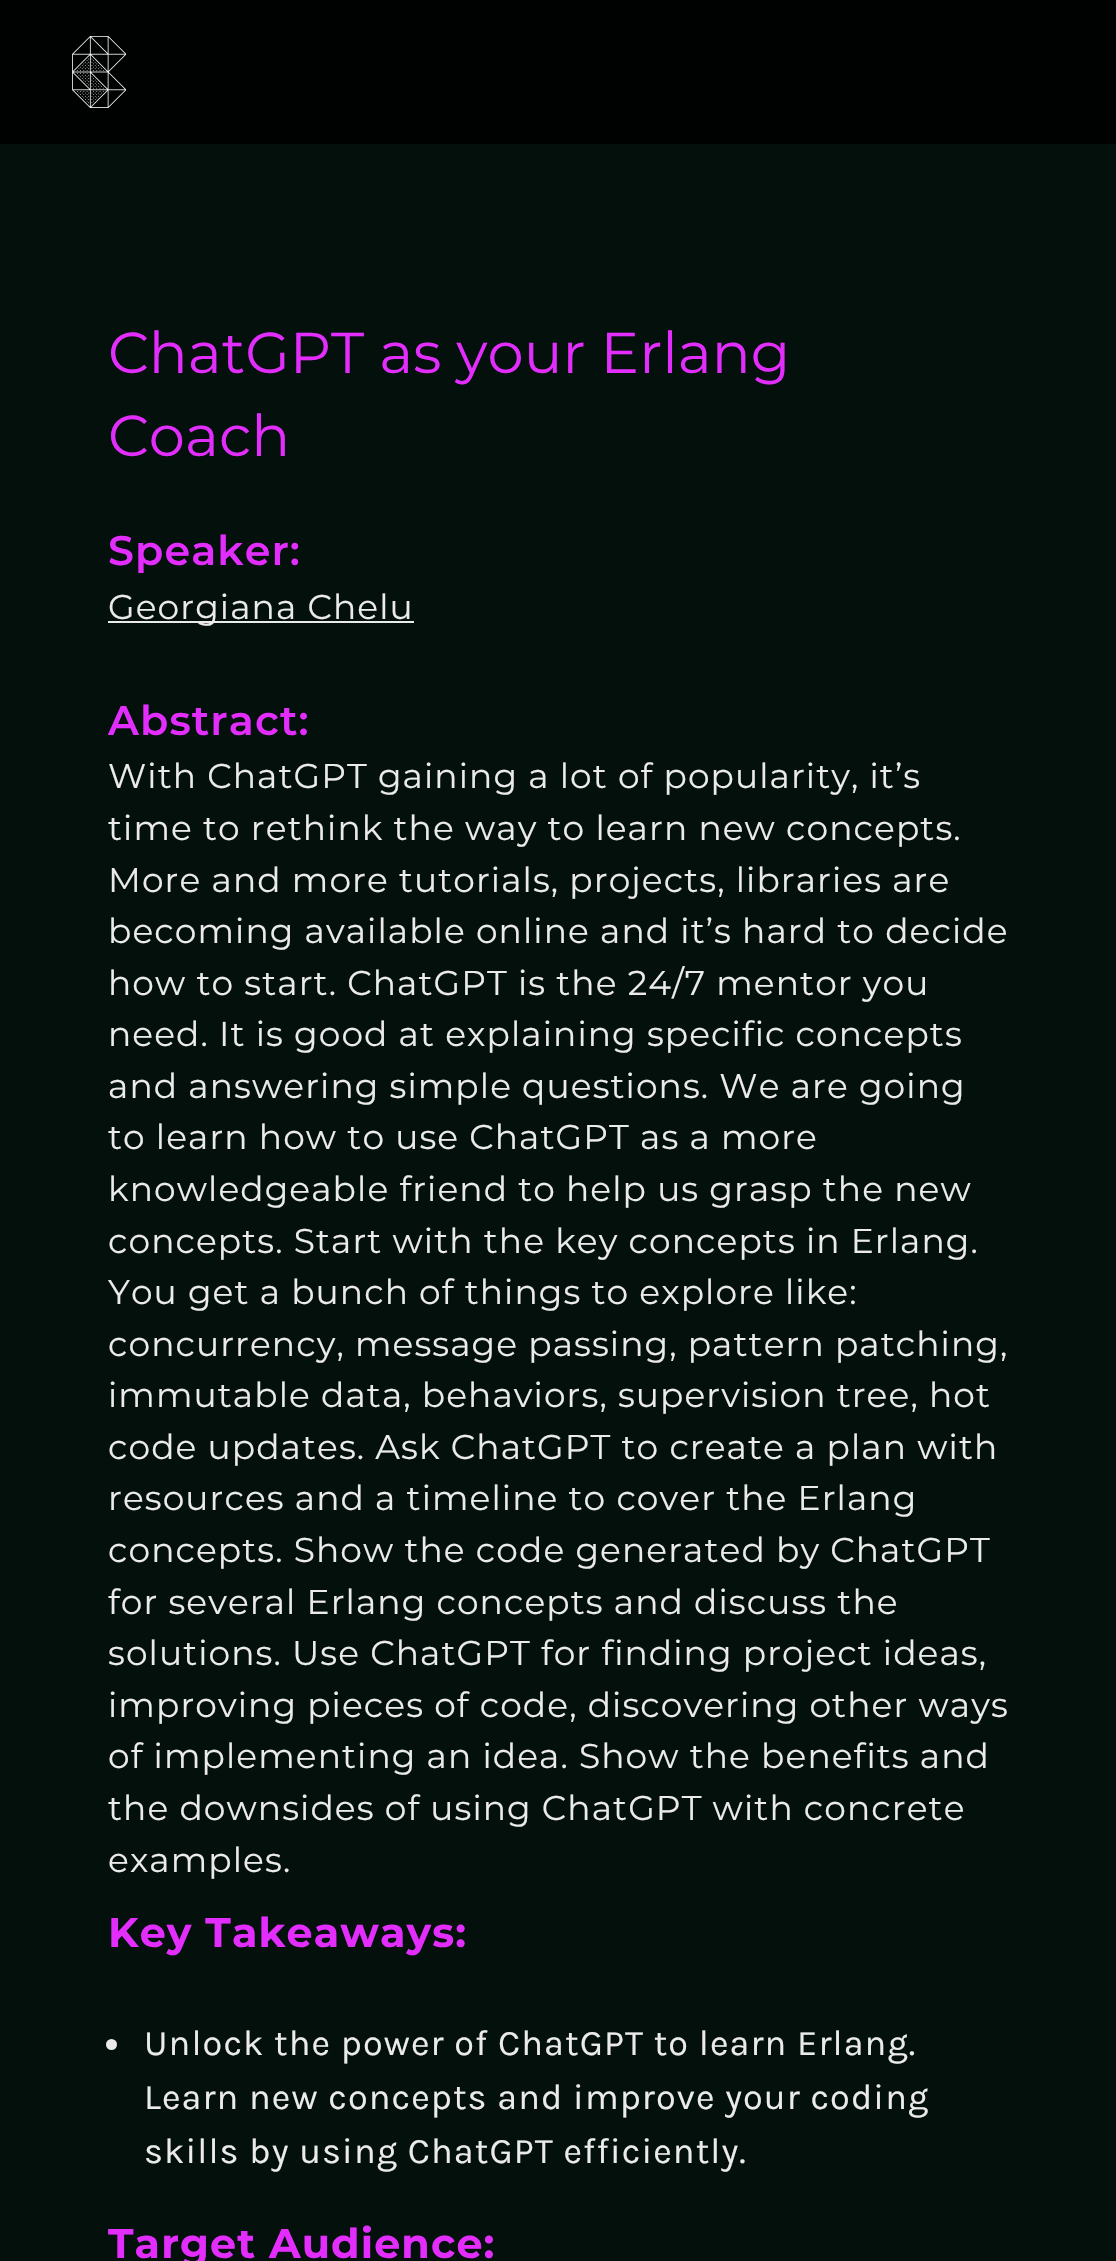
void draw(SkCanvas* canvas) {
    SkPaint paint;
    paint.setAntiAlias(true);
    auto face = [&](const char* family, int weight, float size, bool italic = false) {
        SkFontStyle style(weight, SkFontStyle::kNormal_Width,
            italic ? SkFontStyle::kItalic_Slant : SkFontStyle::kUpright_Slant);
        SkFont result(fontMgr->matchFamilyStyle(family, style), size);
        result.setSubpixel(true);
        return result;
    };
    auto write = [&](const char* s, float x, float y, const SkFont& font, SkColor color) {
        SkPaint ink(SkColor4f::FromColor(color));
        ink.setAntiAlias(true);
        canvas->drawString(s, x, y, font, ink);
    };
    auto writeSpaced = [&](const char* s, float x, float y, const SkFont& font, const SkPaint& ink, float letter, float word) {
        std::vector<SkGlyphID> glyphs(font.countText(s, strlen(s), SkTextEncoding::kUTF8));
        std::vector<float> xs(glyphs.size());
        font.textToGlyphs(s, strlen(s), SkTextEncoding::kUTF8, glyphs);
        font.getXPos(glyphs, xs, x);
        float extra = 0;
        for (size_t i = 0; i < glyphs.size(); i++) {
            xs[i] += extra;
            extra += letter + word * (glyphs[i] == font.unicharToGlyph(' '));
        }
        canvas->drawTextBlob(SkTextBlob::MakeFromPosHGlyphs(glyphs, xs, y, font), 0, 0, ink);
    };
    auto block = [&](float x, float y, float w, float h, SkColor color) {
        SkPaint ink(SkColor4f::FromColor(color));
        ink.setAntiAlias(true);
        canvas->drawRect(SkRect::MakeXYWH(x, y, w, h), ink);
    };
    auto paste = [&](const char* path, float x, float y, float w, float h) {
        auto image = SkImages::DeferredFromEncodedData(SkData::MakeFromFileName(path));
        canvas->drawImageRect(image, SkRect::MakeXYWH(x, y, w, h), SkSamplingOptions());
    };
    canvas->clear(SkColorSetRGB(4, 16, 12));
    block(0, 0, 1116, 144, SkColorSetRGB(0, 1, 1));
    paste("pic1.png", 72, 36, 54, 72);
    auto kFont1 = face("Montserrat", 400, 57.6f);
    write("ChatGPT as your Erlang", 108, 373, kFont1, SkColorSetRGB(227, 45, 253));
    write("Coach", 108, 456, kFont1, SkColorSetRGB(227, 45, 253));
    auto kFont2 = face("Montserrat", 600, 41.25f);
    paint.setColor(SkColorSetRGB(227, 45, 253));
    writeSpaced("Speaker:", 108, 565, kFont2, paint, 1.1f, 0);
    block(108, 621, 306, 2, SkColorSetRGB(234, 235, 234));
    auto kFont3 = face("Montserrat", 400, 34.4f);
    paint.setColor(SkColorSetRGB(234, 235, 234));
    writeSpaced("Georgiana Chelu", 108, 619, kFont3, paint, 1.1f, 0);
    paint.setColor(SkColorSetRGB(227, 45, 253));
    writeSpaced("Abstract:", 108, 735, kFont2, paint, 1.1f, 0);
    paint.setColor(SkColorSetRGB(234, 235, 234));
    writeSpaced("With ChatGPT gaining a lot of popularity, it’s", 108, 788, kFont3, paint, 1.1f, 0);
    writeSpaced("time to rethink the way to learn new concepts.", 108, 840, kFont3, paint, 1.1f, 0);
    writeSpaced("More and more tutorials, projects, libraries are", 108, 892, kFont3, paint, 1.1f, 0);
    writeSpaced("becoming available online and it’s hard to decide", 108, 943, kFont3, paint, 1.1f, 0);
    writeSpaced("how to start. ChatGPT is the 24/7 mentor you", 108, 995, kFont3, paint, 1.1f, 0);
    writeSpaced("need. It is good at explaining specific concepts", 108, 1046, kFont3, paint, 1.1f, 0);
    writeSpaced("and answering simple questions. We are going", 108, 1098, kFont3, paint, 1.1f, 0);
    writeSpaced("to learn how to use ChatGPT as a more", 108, 1149, kFont3, paint, 1.1f, 0);
    writeSpaced("knowledgeable friend to help us grasp the new", 108, 1201, kFont3, paint, 1.1f, 0);
    writeSpaced("concepts. Start with the key concepts in Erlang.", 108, 1253, kFont3, paint, 1.1f, 0);
    writeSpaced("You get a bunch of things to explore like:", 108, 1304, kFont3, paint, 1.1f, 0);
    writeSpaced("concurrency, message passing, pattern patching,", 108, 1356, kFont3, paint, 1.1f, 0);
    writeSpaced("immutable data, behaviors, supervision tree, hot", 108, 1407, kFont3, paint, 1.1f, 0);
    writeSpaced("code updates. Ask ChatGPT to create a plan with", 108, 1459, kFont3, paint, 1.1f, 0);
    writeSpaced("resources and a timeline to cover the Erlang", 108, 1510, kFont3, paint, 1.1f, 0);
    writeSpaced("concepts. Show the code generated by ChatGPT", 108, 1562, kFont3, paint, 1.1f, 0);
    writeSpaced("for several Erlang concepts and discuss the", 108, 1614, kFont3, paint, 1.1f, 0);
    writeSpaced("solutions. Use ChatGPT for finding project ideas,", 108, 1665, kFont3, paint, 1.1f, 0);
    writeSpaced("improving pieces of code, discovering other ways", 108, 1717, kFont3, paint, 1.1f, 0);
    writeSpaced("of implementing an idea. Show the benefits and", 108, 1768, kFont3, paint, 1.1f, 0);
    writeSpaced("the downsides of using ChatGPT with concrete", 108, 1820, kFont3, paint, 1.1f, 0);
    writeSpaced("examples.", 108, 1872, kFont3, paint, 1.1f, 0);
    auto kFont4 = face("Montserrat", 700, 41.25f);
    paint.setColor(SkColorSetRGB(227, 45, 253));
    writeSpaced("Key Takeaways:", 108, 1947, kFont4, paint, 1.1f, 0);
    paint.setColor(SkColorSetRGB(234, 235, 234));
    canvas->drawCircle(111.5f, 2044.5f, 5.5f, paint);
    auto kFont5 = face("Karla", 400, 36);
    writeSpaced("Unlock the power of ChatGPT to learn Erlang.", 144, 2055, kFont5, paint, 1.1f, 0);
    writeSpaced("Learn new concepts and improve your coding", 144, 2109, kFont5, paint, 1.1f, 0);
    writeSpaced("skills by using ChatGPT efficiently.", 144, 2163, kFont5, paint, 1.1f, 0);
    paint.setColor(SkColorSetRGB(227, 45, 253));
    writeSpaced("Target Audience:", 108, 2258, kFont4, paint, 1.1f, 0);
}
